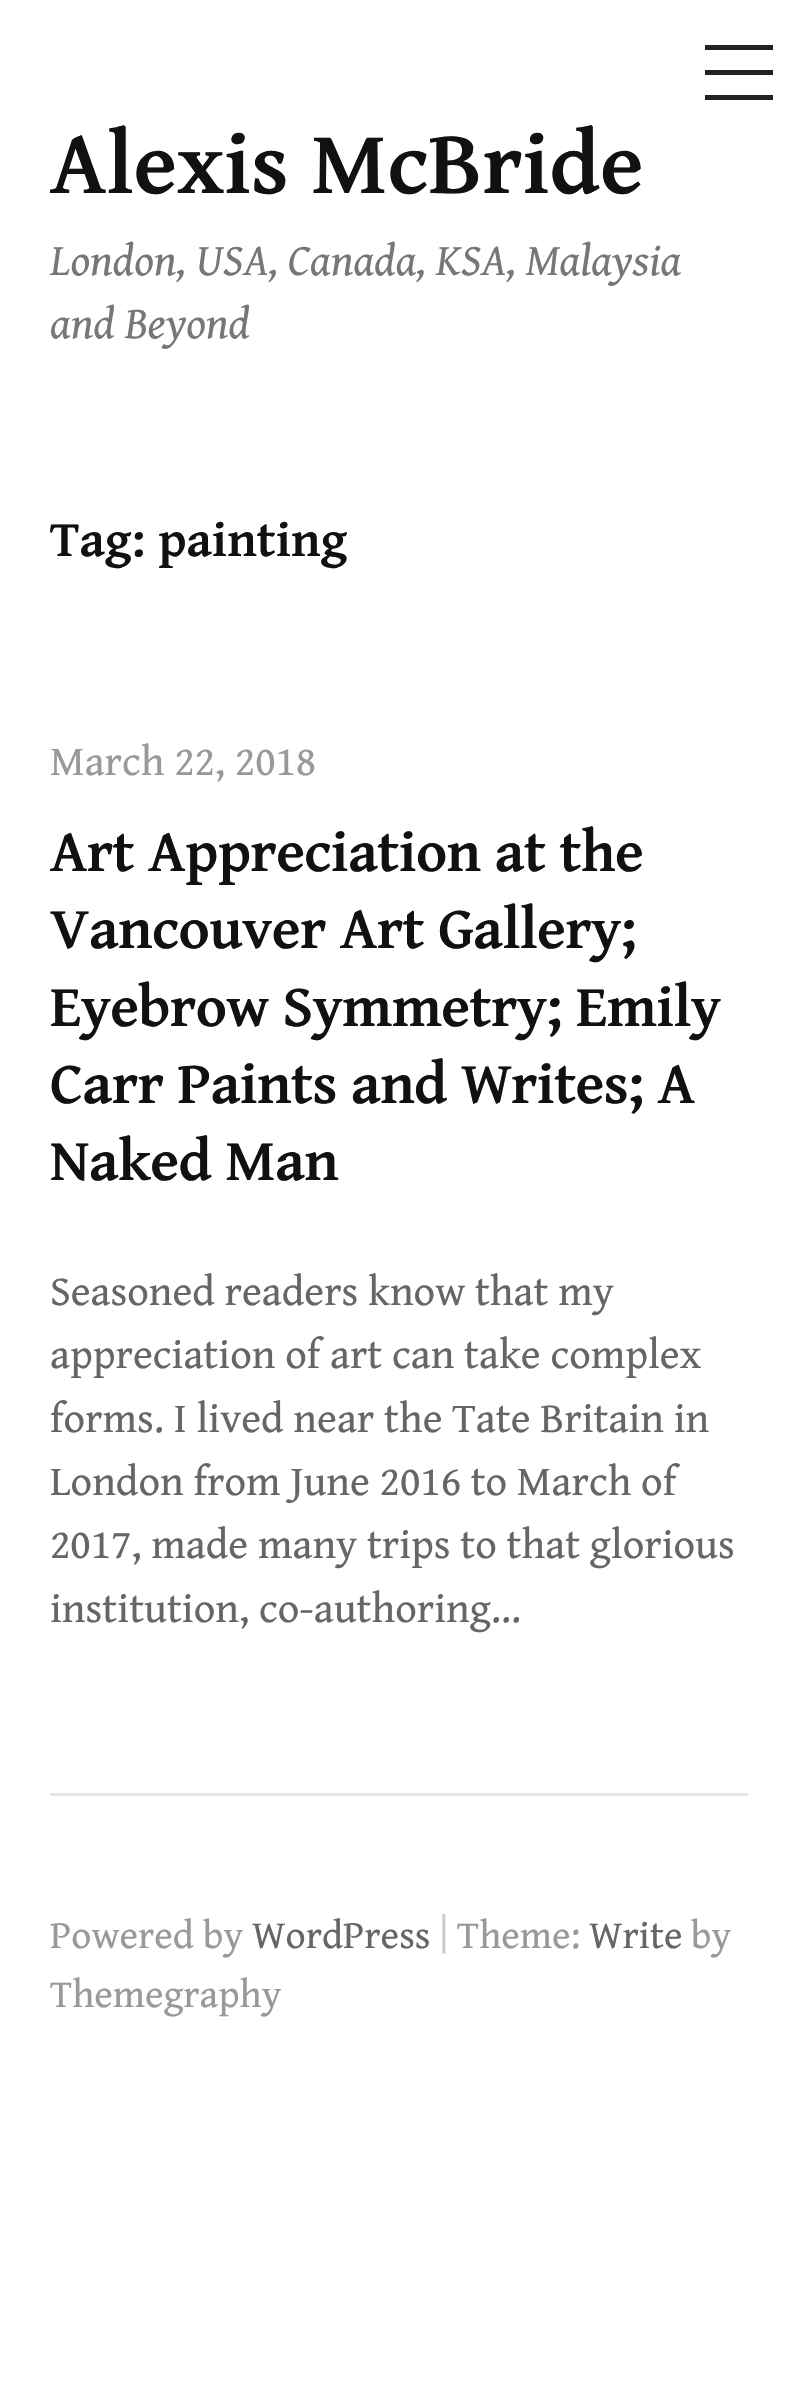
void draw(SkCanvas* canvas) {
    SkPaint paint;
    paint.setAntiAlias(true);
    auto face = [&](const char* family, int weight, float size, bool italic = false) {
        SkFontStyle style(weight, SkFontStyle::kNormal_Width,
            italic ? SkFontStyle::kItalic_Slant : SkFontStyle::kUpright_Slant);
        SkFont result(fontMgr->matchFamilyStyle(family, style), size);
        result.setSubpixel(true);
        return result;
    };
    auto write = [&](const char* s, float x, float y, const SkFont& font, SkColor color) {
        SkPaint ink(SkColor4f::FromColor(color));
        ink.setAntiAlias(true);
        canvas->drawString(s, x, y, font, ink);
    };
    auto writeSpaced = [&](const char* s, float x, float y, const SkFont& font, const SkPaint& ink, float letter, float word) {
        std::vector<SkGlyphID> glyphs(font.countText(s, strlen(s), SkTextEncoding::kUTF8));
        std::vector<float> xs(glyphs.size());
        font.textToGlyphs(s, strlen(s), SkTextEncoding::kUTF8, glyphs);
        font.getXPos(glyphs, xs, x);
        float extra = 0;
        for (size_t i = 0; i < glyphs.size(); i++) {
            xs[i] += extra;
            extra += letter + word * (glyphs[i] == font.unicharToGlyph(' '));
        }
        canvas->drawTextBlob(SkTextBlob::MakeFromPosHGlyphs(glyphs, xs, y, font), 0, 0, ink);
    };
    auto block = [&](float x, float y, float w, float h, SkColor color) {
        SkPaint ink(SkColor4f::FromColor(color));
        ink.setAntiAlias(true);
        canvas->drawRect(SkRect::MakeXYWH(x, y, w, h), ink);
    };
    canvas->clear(SK_ColorWHITE);
    block(705, 70, 68, 5, SkColorSetRGB(34, 34, 34));
    block(705, 45, 68, 5, SkColorSetRGB(34, 34, 34));
    block(705, 95, 68, 5, SkColorSetRGB(34, 34, 34));
    auto kFont1 = face("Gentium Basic", 700, 90);
    write("Alexis McBride", 50, 193, kFont1, SkColorSetRGB(17, 17, 17));
    auto kFont2 = face("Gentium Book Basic", 400, 45, true);
    write("London, USA, Canada, KSA, Malaysia", 50, 275, kFont2, SkColorSetRGB(119, 119, 119));
    write("and Beyond", 50, 338, kFont2, SkColorSetRGB(119, 119, 119));
    auto kFont3 = face("Gentium Basic", 700, 51);
    write("Tag: painting", 50, 556, kFont3, SkColorSetRGB(17, 17, 17));
    auto kFont4 = face("Gentium Book Basic", 400, 42.25f);
    write("March 22, 2018", 50, 775, kFont4, SkColorSetRGB(153, 153, 153));
    auto kFont5 = face("Gentium Basic", 700, 59.5f);
    paint.setColor(SkColorSetRGB(17, 17, 17));
    writeSpaced("Art Appreciation at the", 50, 871, kFont5, paint, -0.6f, 0);
    writeSpaced("Vancouver Art Gallery;", 50, 948, kFont5, paint, -0.6f, 0);
    writeSpaced("Eyebrow Symmetry; Emily", 50, 1026, kFont5, paint, -0.6f, 0);
    writeSpaced("Carr Paints and Writes; A", 50, 1103, kFont5, paint, -0.6f, 0);
    writeSpaced("Naked Man", 50, 1180, kFont5, paint, -0.6f, 0);
    write("Seasoned readers know that my", 50, 1305, kFont4, SkColorSetRGB(102, 102, 102));
    write("appreciation of art can take complex", 50, 1368, kFont4, SkColorSetRGB(102, 102, 102));
    write("forms. I lived near the Tate Britain in", 50, 1432, kFont4, SkColorSetRGB(102, 102, 102));
    write("London from June 2016 to March of", 50, 1495, kFont4, SkColorSetRGB(102, 102, 102));
    write("2017, made many trips to that glorious", 50, 1558, kFont4, SkColorSetRGB(102, 102, 102));
    write("institution, co-authoring…", 50, 1622, kFont4, SkColorSetRGB(102, 102, 102));
    block(50, 1793, 698, 3, SkColorSetRGB(230, 230, 230));
    auto kFont6 = face("Gentium Book Basic", 400, 39.5f);
    write("Powered by", 50, 1948, kFont6, SkColorSetRGB(153, 153, 153));
    write("WordPress", 252, 1948, kFont6, SkColorSetRGB(102, 102, 102));
    write("|", 439, 1946, kFont6, SkColorSetRGB(204, 204, 204));
    write("Theme:", 457, 1948, kFont6, SkColorSetRGB(153, 153, 153));
    write("Write", 589, 1948, kFont6, SkColorSetRGB(102, 102, 102));
    write("by", 691, 1948, kFont6, SkColorSetRGB(153, 153, 153));
    write("Themegraphy", 50, 2007, kFont6, SkColorSetRGB(153, 153, 153));
}
